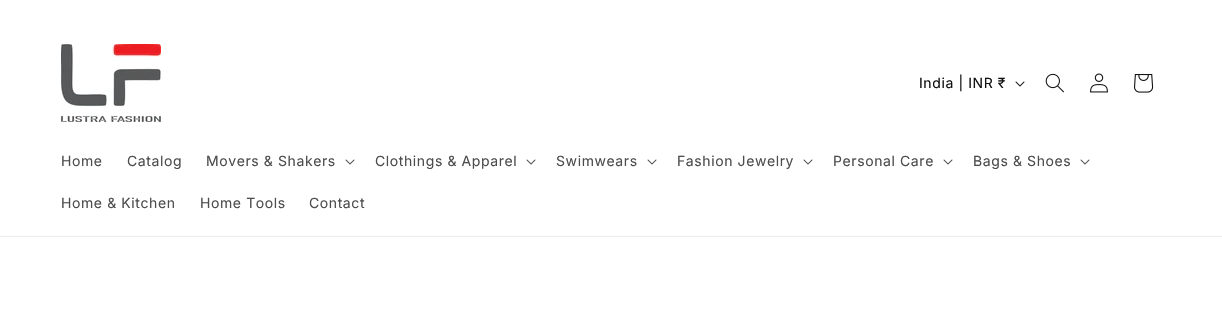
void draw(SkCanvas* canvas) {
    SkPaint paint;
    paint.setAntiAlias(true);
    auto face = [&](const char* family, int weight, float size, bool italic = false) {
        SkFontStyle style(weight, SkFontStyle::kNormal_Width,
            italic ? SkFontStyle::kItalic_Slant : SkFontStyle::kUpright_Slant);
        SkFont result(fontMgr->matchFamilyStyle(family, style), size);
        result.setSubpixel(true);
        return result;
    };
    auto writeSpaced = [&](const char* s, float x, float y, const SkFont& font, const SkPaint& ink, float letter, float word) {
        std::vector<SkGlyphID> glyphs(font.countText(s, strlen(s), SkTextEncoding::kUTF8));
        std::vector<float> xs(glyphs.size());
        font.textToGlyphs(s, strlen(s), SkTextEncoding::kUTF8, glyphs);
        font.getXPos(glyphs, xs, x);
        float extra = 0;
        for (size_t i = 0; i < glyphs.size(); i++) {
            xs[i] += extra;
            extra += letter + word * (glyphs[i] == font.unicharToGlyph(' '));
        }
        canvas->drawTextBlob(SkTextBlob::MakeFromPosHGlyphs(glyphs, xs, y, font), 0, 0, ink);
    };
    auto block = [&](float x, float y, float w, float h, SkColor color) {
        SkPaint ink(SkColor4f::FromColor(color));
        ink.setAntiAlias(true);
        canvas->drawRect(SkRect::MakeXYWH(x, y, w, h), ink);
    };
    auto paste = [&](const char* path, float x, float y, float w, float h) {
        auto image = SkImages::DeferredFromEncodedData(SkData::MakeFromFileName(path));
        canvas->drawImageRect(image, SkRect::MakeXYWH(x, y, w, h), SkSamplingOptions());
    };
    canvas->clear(SK_ColorWHITE);
    block(0, 236, 1222, 1, SkColorSetRGB(236, 236, 236));
    paste("pic1.png", 61, 44, 100, 78);
    auto kFont1 = face("Inter", 400, 14);
    paint.setColor(SkColorSetRGB(18, 18, 18));
    writeSpaced("India | INR ₹", 919, 88, kFont1, paint, 0.6f, 0);
    paste("pic2.png", 1015, 81, 10, 6);
    paste("pic3.png", 1045, 73, 19, 20);
    paste("pic4.png", 1090, 73, 18, 20);
    paste("pic5.png", 1134, 74, 20, 19);
    paint.setColor(SkColorSetRGB(77, 77, 77));
    writeSpaced("Home", 61, 166, kFont1, paint, 0.6f, 0);
    writeSpaced("Catalog", 127, 166, kFont1, paint, 0.6f, 0);
    writeSpaced("Movers & Shakers", 206, 166, kFont1, paint, 0.6f, 0);
    paste("pic6.png", 345, 159, 10, 6);
    writeSpaced("Clothings & Apparel", 375, 166, kFont1, paint, 0.6f, 0);
    paste("pic6.png", 526, 159, 10, 6);
    writeSpaced("Swimwears", 556, 166, kFont1, paint, 0.6f, 0);
    paste("pic6.png", 647, 159, 10, 6);
    writeSpaced("Fashion Jewelry", 677, 166, kFont1, paint, 0.6f, 0);
    paste("pic6.png", 803, 159, 10, 6);
    writeSpaced("Personal Care", 833, 166, kFont1, paint, 0.6f, 0);
    paste("pic6.png", 943, 159, 10, 6);
    writeSpaced("Bags & Shoes", 973, 166, kFont1, paint, 0.6f, 0);
    paste("pic6.png", 1080, 159, 10, 6);
    writeSpaced("Home & Kitchen", 61, 208, kFont1, paint, 0.6f, 0);
    writeSpaced("Home Tools", 200, 208, kFont1, paint, 0.6f, 0);
    writeSpaced("Contact", 309, 208, kFont1, paint, 0.6f, 0);
}
